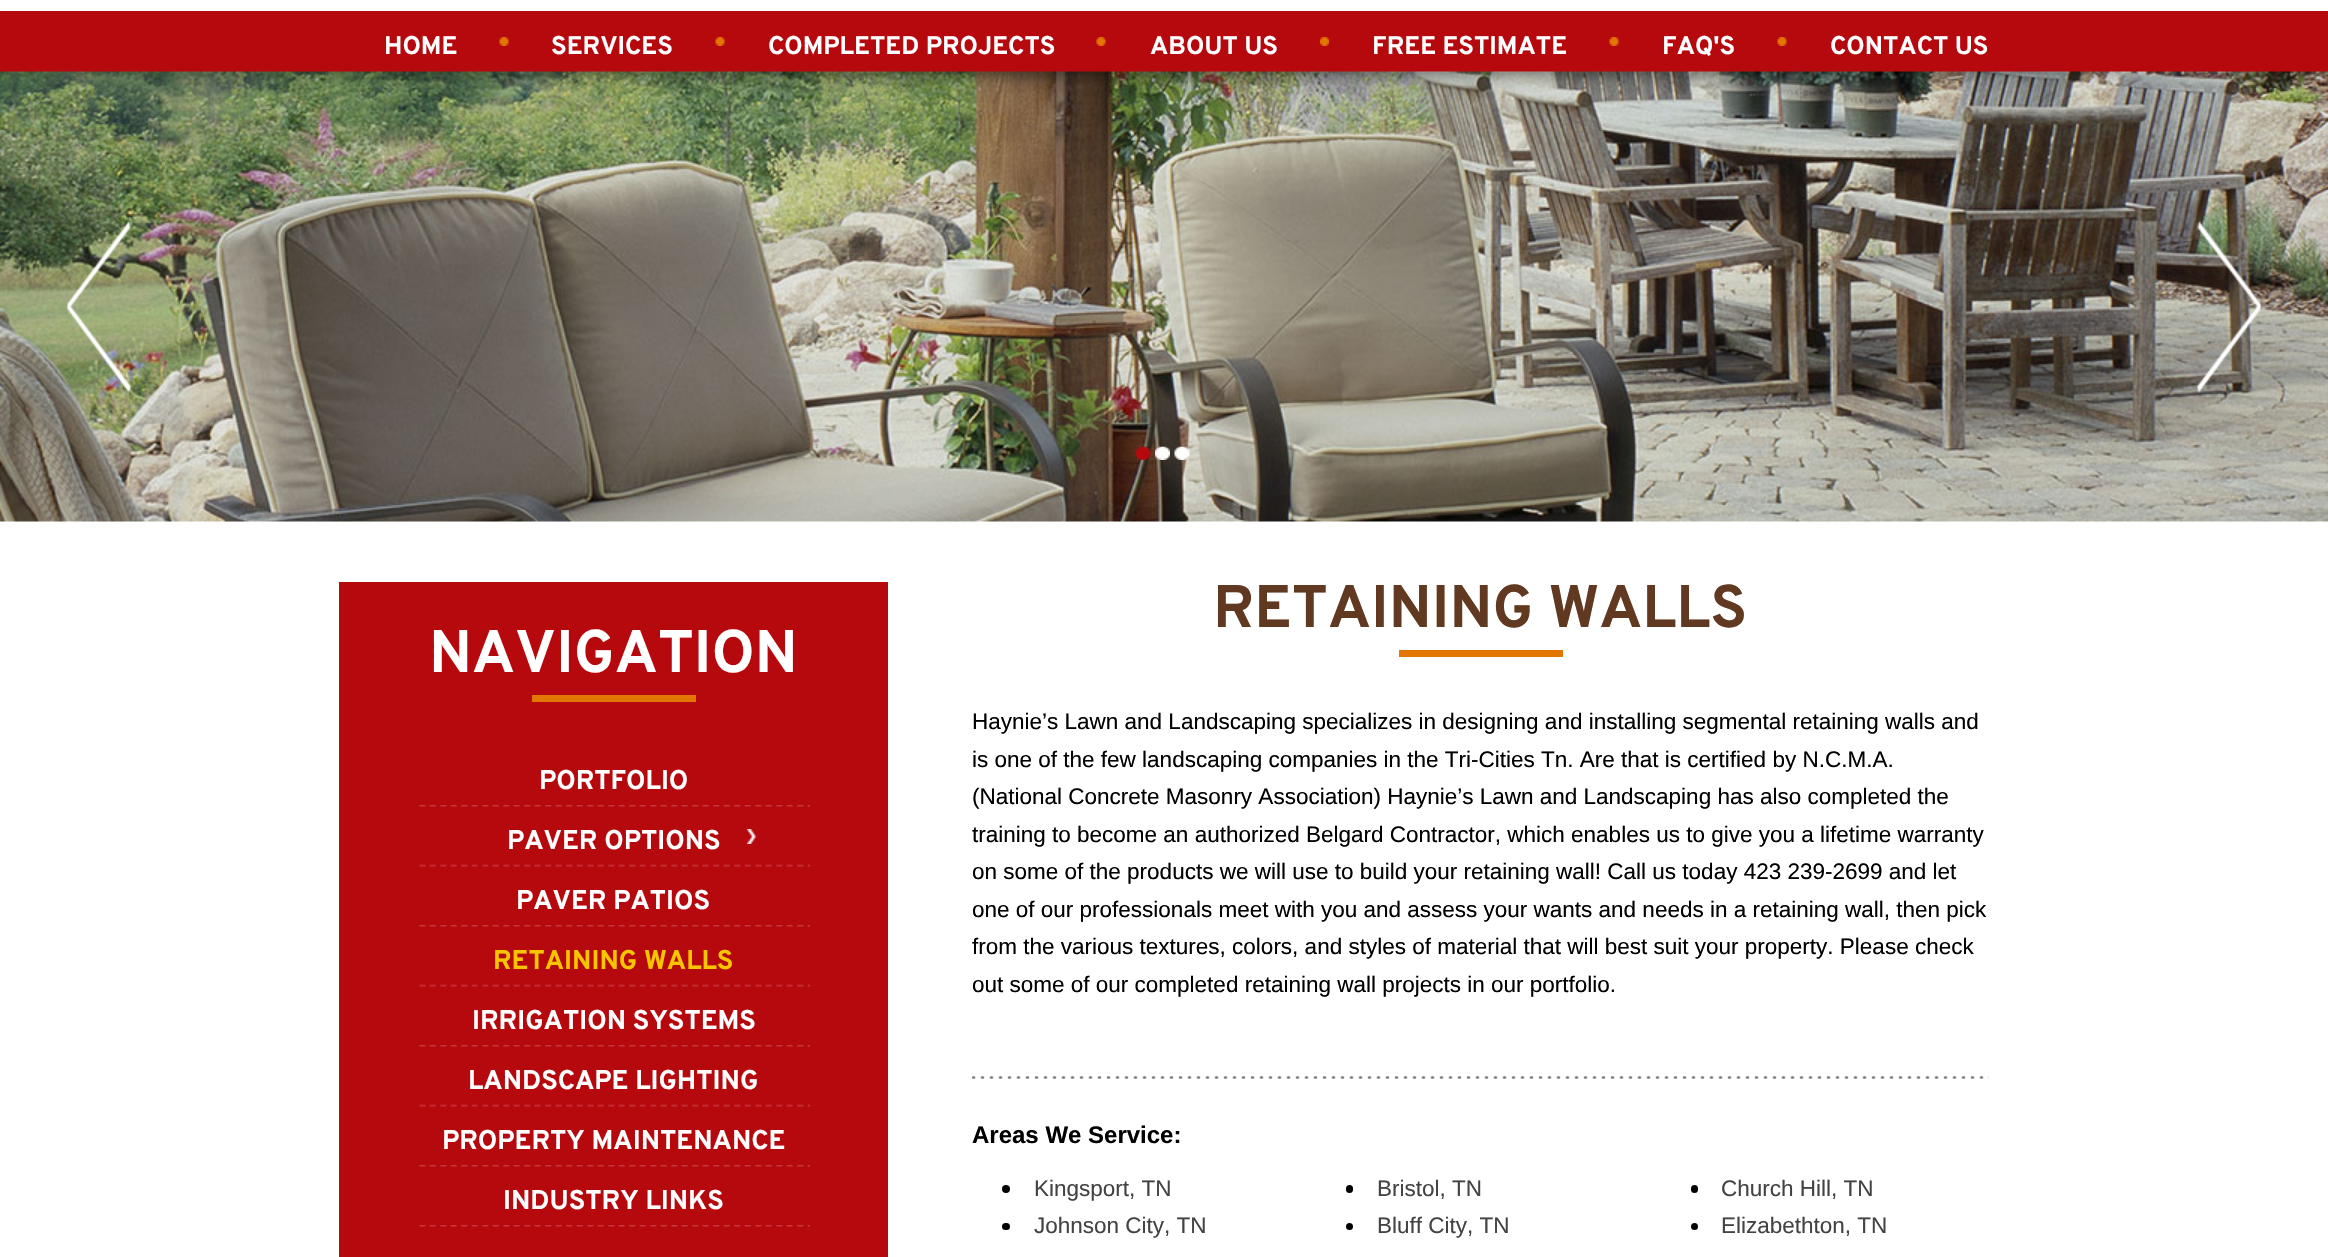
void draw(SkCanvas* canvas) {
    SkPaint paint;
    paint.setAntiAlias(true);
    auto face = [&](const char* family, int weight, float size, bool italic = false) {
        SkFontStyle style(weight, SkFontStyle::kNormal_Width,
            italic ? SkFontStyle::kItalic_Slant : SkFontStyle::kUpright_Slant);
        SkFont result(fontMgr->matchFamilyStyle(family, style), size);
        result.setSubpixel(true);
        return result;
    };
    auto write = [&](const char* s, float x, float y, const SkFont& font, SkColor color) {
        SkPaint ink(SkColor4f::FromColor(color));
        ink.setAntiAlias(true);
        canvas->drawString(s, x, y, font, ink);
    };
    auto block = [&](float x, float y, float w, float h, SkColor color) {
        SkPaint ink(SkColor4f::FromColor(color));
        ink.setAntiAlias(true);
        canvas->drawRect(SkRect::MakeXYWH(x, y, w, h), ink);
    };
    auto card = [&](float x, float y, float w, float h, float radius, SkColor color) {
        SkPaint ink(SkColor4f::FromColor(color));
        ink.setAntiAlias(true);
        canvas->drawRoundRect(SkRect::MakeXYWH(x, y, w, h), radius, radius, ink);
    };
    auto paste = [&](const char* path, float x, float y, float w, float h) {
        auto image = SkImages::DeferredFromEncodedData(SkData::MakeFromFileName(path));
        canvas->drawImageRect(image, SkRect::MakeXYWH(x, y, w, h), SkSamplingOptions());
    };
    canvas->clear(SK_ColorWHITE);
    block(0, 11, 2328, 61, SkColorSetRGB(182, 9, 14));
    paste("pic1.png", 499, 37, 10, 9);
    auto kFont1 = face("Overpass", 700, 25.5f);
    write("HOME", 384, 54, kFont1, SK_ColorWHITE);
    paste("pic2.png", 715, 37, 10, 9);
    write("SERVICES", 551, 54, kFont1, SK_ColorWHITE);
    paste("pic1.png", 1096, 37, 10, 9);
    write("COMPLETED PROJECTS", 768, 54, kFont1, SK_ColorWHITE);
    paste("pic3.png", 1320, 37, 9, 9);
    write("ABOUT US", 1150, 54, kFont1, SK_ColorWHITE);
    paste("pic1.png", 1609, 37, 10, 9);
    write("FREE ESTIMATE", 1372, 54, kFont1, SK_ColorWHITE);
    paste("pic1.png", 1777, 37, 10, 9);
    write("FAQ'S", 1662, 54, kFont1, SK_ColorWHITE);
    write("CONTACT US", 1830, 54, kFont1, SK_ColorWHITE);
    paste("pic4.png", 0, 71, 2328, 451);
    paste("pic5.png", 67, 221, 64, 172);
    paste("pic6.png", 2197, 221, 64, 172);
    paste("pic7.png", 1135, 446, 16, 14);
    paste("pic8.png", 1155, 446, 15, 14);
    paste("pic9.png", 1174, 446, 16, 14);
    block(339, 582, 549, 675, SkColorSetRGB(182, 9, 14));
    block(532, 695, 164, 7, SkColorSetRGB(226, 119, 3));
    auto kFont2 = face("Overpass", 700, 60);
    write("NAVIGATION", 429, 672, kFont2, SK_ColorWHITE);
    paste("pic10.png", 419, 805, 391, 2);
    auto kFont3 = face("Overpass", 700, 27);
    write("PORTFOLIO", 539, 789, kFont3, SK_ColorWHITE);
    paste("pic11.png", 419, 864, 391, 3);
    paste("pic12.png", 747, 829, 9, 15);
    write("PAVER OPTIONS", 507, 849, kFont3, SK_ColorWHITE);
    paste("pic10.png", 419, 925, 391, 2);
    write("PAVER PATIOS", 516, 909, kFont3, SK_ColorWHITE);
    paste("pic11.png", 419, 984, 391, 3);
    write("RETAINING WALLS", 493, 969, kFont3, SkColorSetRGB(245, 198, 0));
    paste("pic10.png", 419, 1045, 391, 2);
    write("IRRIGATION SYSTEMS", 472, 1029, kFont3, SK_ColorWHITE);
    paste("pic11.png", 419, 1104, 391, 3);
    write("LANDSCAPE LIGHTING", 468, 1089, kFont3, SK_ColorWHITE);
    paste("pic10.png", 419, 1165, 391, 2);
    write("PROPERTY MAINTENANCE", 442, 1149, kFont3, SK_ColorWHITE);
    paste("pic10.png", 419, 1225, 391, 2);
    write("INDUSTRY LINKS", 503, 1209, kFont3, SK_ColorWHITE);
    block(1399, 650, 164, 7, SkColorSetRGB(226, 119, 3));
    write("RETAINING WALLS", 1213, 627, kFont2, SkColorSetRGB(97, 57, 33));
    auto kFont4 = face("Liberation Sans", 400, 22.5f);
    write("Haynie’s Lawn and Landscaping specializes in designing and installing segmental retaining walls and", 972, 729, kFont4, SK_ColorBLACK);
    write("is one of the few landscaping companies in the Tri-Cities Tn. Are that is certified by N.C.M.A.", 972, 767, kFont4, SK_ColorBLACK);
    write("(National Concrete Masonry Association) Haynie’s Lawn and Landscaping has also completed the", 972, 804, kFont4, SK_ColorBLACK);
    write("training to become an authorized Belgard Contractor, which enables us to give you a lifetime warranty", 972, 842, kFont4, SK_ColorBLACK);
    write("on some of the products we will use to build your retaining wall! Call us today 423 239-2699 and let", 972, 879, kFont4, SK_ColorBLACK);
    write("one of our professionals meet with you and assess your wants and needs in a retaining wall, then pick", 972, 917, kFont4, SK_ColorBLACK);
    write("from the various textures, colors, and styles of material that will best suit your property. Please check", 972, 954, kFont4, SK_ColorBLACK);
    write("out some of our completed retaining wall projects in our portfolio.", 972, 992, kFont4, SK_ColorBLACK);
    paste("pic13.png", 972, 1076, 1017, 3);
    auto kFont5 = face("Liberation Sans", 700, 24);
    write("Areas We Service:", 972, 1143, kFont5, SK_ColorBLACK);
    paint.setColor(SK_ColorBLACK);
    canvas->drawCircle(1006, 1189, 4, paint);
    write("Kingsport, TN", 1034, 1196, kFont4, SkColorSetRGB(67, 67, 67));
    card(1346, 1185, 7, 8, 3.5f, SK_ColorBLACK);
    write("Bristol, TN", 1377, 1196, kFont4, SkColorSetRGB(67, 67, 67));
    card(1691, 1185, 7, 8, 3.5f, SK_ColorBLACK);
    write("Church Hill, TN", 1721, 1196, kFont4, SkColorSetRGB(67, 67, 67));
    card(1002, 1223, 8, 7, 3.5f, SK_ColorBLACK);
    write("Johnson City, TN", 1034, 1233, kFont4, SkColorSetRGB(67, 67, 67));
    canvas->drawCircle(1349.5f, 1226.5f, 3.5f, paint);
    write("Bluff City, TN", 1377, 1233, kFont4, SkColorSetRGB(67, 67, 67));
    canvas->drawCircle(1694.5f, 1226.5f, 3.5f, paint);
    write("Elizabethton, TN", 1721, 1233, kFont4, SkColorSetRGB(67, 67, 67));
}
